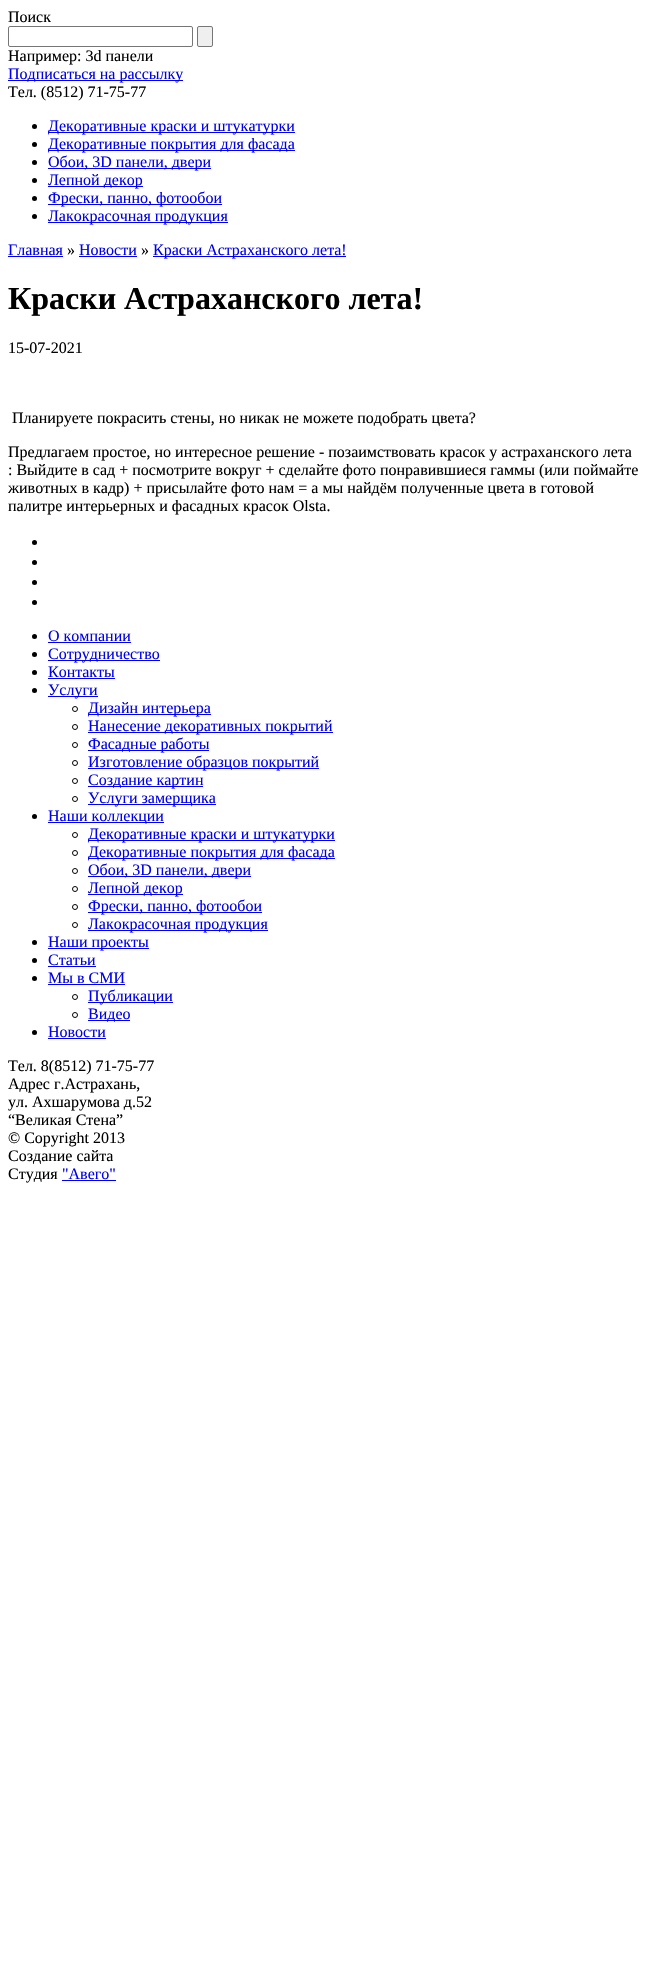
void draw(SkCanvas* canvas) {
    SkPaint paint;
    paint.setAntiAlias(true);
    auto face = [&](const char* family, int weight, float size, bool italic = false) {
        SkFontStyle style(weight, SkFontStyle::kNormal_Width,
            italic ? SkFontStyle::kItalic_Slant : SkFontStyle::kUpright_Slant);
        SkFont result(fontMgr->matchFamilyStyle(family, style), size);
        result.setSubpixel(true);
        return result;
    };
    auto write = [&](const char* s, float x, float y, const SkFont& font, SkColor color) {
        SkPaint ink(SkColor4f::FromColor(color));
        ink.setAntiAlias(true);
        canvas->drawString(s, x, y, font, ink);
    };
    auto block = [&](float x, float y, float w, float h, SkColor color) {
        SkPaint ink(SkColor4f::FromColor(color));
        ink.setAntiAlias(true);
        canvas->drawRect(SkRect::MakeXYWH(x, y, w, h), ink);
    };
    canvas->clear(SK_ColorWHITE);
    auto kFont1 = face("Liberation Serif", 400, 16);
    write("Поиск", 8, 22, kFont1, SK_ColorBLACK);
    paint.setStyle(SkPaint::kStroke_Style);
    paint.setStrokeWidth(1);
    paint.setColor(SkColorSetRGB(118, 118, 118));
    canvas->drawRoundRect(SkRect::MakeXYWH(8.5f, 26.5f, 184, 20), 1.5f, 1.5f, paint);
    paint.setStyle(SkPaint::kFill_Style);
    paint.setColor(SkColorSetRGB(239, 239, 239));
    canvas->drawRoundRect(SkRect::MakeXYWH(197.5f, 26.5f, 15, 20), 1.5f, 1.5f, paint);
    paint.setStyle(SkPaint::kStroke_Style);
    paint.setColor(SkColorSetRGB(118, 118, 118));
    canvas->drawRoundRect(SkRect::MakeXYWH(197.5f, 26.5f, 15, 20), 1.5f, 1.5f, paint);
    write("Например: 3d панели", 8, 61, kFont1, SK_ColorBLACK);
    block(8, 80, 175, 1, SkColorSetRGB(0, 0, 238));
    write("Подписаться на рассылку", 8, 79, kFont1, SkColorSetRGB(0, 0, 238));
    write("Тел. (8512) 71-75-77", 8, 97, kFont1, SK_ColorBLACK);
    paint.setStyle(SkPaint::kFill_Style);
    paint.setColor(SK_ColorBLACK);
    canvas->drawCircle(34.5f, 126.5f, 2.5f, paint);
    block(48, 132, 247, 1, SkColorSetRGB(0, 0, 238));
    write("Декоративные краски и штукатурки", 48, 131, kFont1, SkColorSetRGB(0, 0, 238));
    canvas->drawCircle(34.5f, 144.5f, 2.5f, paint);
    block(48, 150, 247, 1, SkColorSetRGB(0, 0, 238));
    write("Декоративные покрытия для фасада", 48, 149, kFont1, SkColorSetRGB(0, 0, 238));
    canvas->drawCircle(34.5f, 162.5f, 2.5f, paint);
    block(48, 168, 163, 1, SkColorSetRGB(0, 0, 238));
    write("Обои, 3D панели, двери", 48, 167, kFont1, SkColorSetRGB(0, 0, 238));
    canvas->drawCircle(34.5f, 180.5f, 2.5f, paint);
    block(48, 186, 95, 1, SkColorSetRGB(0, 0, 238));
    write("Лепной декор", 48, 185, kFont1, SkColorSetRGB(0, 0, 238));
    canvas->drawCircle(34.5f, 198.5f, 2.5f, paint);
    block(48, 204, 174, 1, SkColorSetRGB(0, 0, 238));
    write("Фрески, панно, фотообои", 48, 203, kFont1, SkColorSetRGB(0, 0, 238));
    canvas->drawCircle(34.5f, 216.5f, 2.5f, paint);
    block(48, 222, 180, 1, SkColorSetRGB(0, 0, 238));
    write("Лакокрасочная продукция", 48, 221, kFont1, SkColorSetRGB(0, 0, 238));
    write("Главная", 8, 255, kFont1, SkColorSetRGB(0, 0, 238));
    block(8, 256, 55, 1, SkColorSetRGB(0, 0, 238));
    write("»", 67, 255, kFont1, SK_ColorBLACK);
    write("Новости", 79, 255, kFont1, SkColorSetRGB(0, 0, 238));
    block(79, 256, 58, 1, SkColorSetRGB(0, 0, 238));
    write("»", 141, 255, kFont1, SK_ColorBLACK);
    block(153, 256, 193, 1, SkColorSetRGB(0, 0, 238));
    write("Краски Астраханского лета!", 153, 255, kFont1, SkColorSetRGB(0, 0, 238));
    auto kFont2 = face("Liberation Serif", 700, 32);
    write("Краски Астраханского лета!", 8, 309, kFont2, SK_ColorBLACK);
    write("15-07-2021", 8, 353, kFont1, SK_ColorBLACK);
    write("Планируете покрасить стены, но никак не можете подобрать цвета?", 12, 423, kFont1, SK_ColorBLACK);
    write("Предлагаем простое, но интересное решение - позаимствовать красок у астраханского лета", 8, 457, kFont1, SK_ColorBLACK);
    write(": Выйдите в сад + посмотрите вокруг + сделайте фото понравившиеся гаммы (или поймайте", 8, 475, kFont1, SK_ColorBLACK);
    write("животных в кадр) + присылайте фото нам = а мы найдём полученные цвета в готовой", 8, 493, kFont1, SK_ColorBLACK);
    write("палитре интерьерных и фасадных красок Olsta.", 8, 511, kFont1, SK_ColorBLACK);
    canvas->drawCircle(34.5f, 542.5f, 2.5f, paint);
    canvas->drawCircle(34.5f, 562.5f, 2.5f, paint);
    canvas->drawCircle(34.5f, 582.5f, 2.5f, paint);
    canvas->drawCircle(34.5f, 602.5f, 2.5f, paint);
    canvas->drawCircle(34.5f, 636.5f, 2.5f, paint);
    write("О компании", 48, 641, kFont1, SkColorSetRGB(0, 0, 238));
    block(48, 642, 83, 1, SkColorSetRGB(0, 0, 238));
    canvas->drawCircle(34.5f, 654.5f, 2.5f, paint);
    block(48, 660, 112, 1, SkColorSetRGB(0, 0, 238));
    write("Сотрудничество", 48, 659, kFont1, SkColorSetRGB(0, 0, 238));
    canvas->drawCircle(34.5f, 672.5f, 2.5f, paint);
    write("Контакты", 48, 677, kFont1, SkColorSetRGB(0, 0, 238));
    block(48, 678, 67, 1, SkColorSetRGB(0, 0, 238));
    canvas->drawCircle(34.5f, 690.5f, 2.5f, paint);
    block(48, 696, 50, 1, SkColorSetRGB(0, 0, 238));
    write("Услуги", 48, 695, kFont1, SkColorSetRGB(0, 0, 238));
    paint.setStyle(SkPaint::kStroke_Style);
    canvas->drawCircle(75, 709, 2.5f, paint);
    block(88, 714, 123, 1, SkColorSetRGB(0, 0, 238));
    write("Дизайн интерьера", 88, 713, kFont1, SkColorSetRGB(0, 0, 238));
    canvas->drawCircle(75, 727, 2.5f, paint);
    block(88, 732, 245, 1, SkColorSetRGB(0, 0, 238));
    write("Нанесение декоративных покрытий", 88, 731, kFont1, SkColorSetRGB(0, 0, 238));
    canvas->drawCircle(75, 745, 2.5f, paint);
    block(88, 750, 121, 1, SkColorSetRGB(0, 0, 238));
    write("Фасадные работы", 88, 749, kFont1, SkColorSetRGB(0, 0, 238));
    canvas->drawCircle(75, 763, 2.5f, paint);
    block(88, 768, 231, 1, SkColorSetRGB(0, 0, 238));
    write("Изготовление образцов покрытий", 88, 767, kFont1, SkColorSetRGB(0, 0, 238));
    canvas->drawCircle(75, 781, 2.5f, paint);
    block(88, 786, 115, 1, SkColorSetRGB(0, 0, 238));
    write("Создание картин", 88, 785, kFont1, SkColorSetRGB(0, 0, 238));
    canvas->drawCircle(75, 799, 2.5f, paint);
    block(88, 804, 128, 1, SkColorSetRGB(0, 0, 238));
    write("Услуги замерщика", 88, 803, kFont1, SkColorSetRGB(0, 0, 238));
    paint.setStyle(SkPaint::kFill_Style);
    canvas->drawCircle(34.5f, 816.5f, 2.5f, paint);
    block(48, 822, 116, 1, SkColorSetRGB(0, 0, 238));
    write("Наши коллекции", 48, 821, kFont1, SkColorSetRGB(0, 0, 238));
    paint.setStyle(SkPaint::kStroke_Style);
    canvas->drawCircle(75, 835, 2.5f, paint);
    block(88, 840, 247, 1, SkColorSetRGB(0, 0, 238));
    write("Декоративные краски и штукатурки", 88, 839, kFont1, SkColorSetRGB(0, 0, 238));
    canvas->drawCircle(75, 853, 2.5f, paint);
    block(88, 858, 247, 1, SkColorSetRGB(0, 0, 238));
    write("Декоративные покрытия для фасада", 88, 857, kFont1, SkColorSetRGB(0, 0, 238));
    canvas->drawCircle(75, 871, 2.5f, paint);
    block(88, 876, 163, 1, SkColorSetRGB(0, 0, 238));
    write("Обои, 3D панели, двери", 88, 875, kFont1, SkColorSetRGB(0, 0, 238));
    canvas->drawCircle(75, 889, 2.5f, paint);
    block(88, 894, 95, 1, SkColorSetRGB(0, 0, 238));
    write("Лепной декор", 88, 893, kFont1, SkColorSetRGB(0, 0, 238));
    canvas->drawCircle(75, 907, 2.5f, paint);
    block(88, 912, 174, 1, SkColorSetRGB(0, 0, 238));
    write("Фрески, панно, фотообои", 88, 911, kFont1, SkColorSetRGB(0, 0, 238));
    canvas->drawCircle(75, 925, 2.5f, paint);
    block(88, 930, 180, 1, SkColorSetRGB(0, 0, 238));
    write("Лакокрасочная продукция", 88, 929, kFont1, SkColorSetRGB(0, 0, 238));
    paint.setStyle(SkPaint::kFill_Style);
    canvas->drawCircle(34.5f, 942.5f, 2.5f, paint);
    block(48, 948, 101, 1, SkColorSetRGB(0, 0, 238));
    write("Наши проекты", 48, 947, kFont1, SkColorSetRGB(0, 0, 238));
    canvas->drawCircle(34.5f, 960.5f, 2.5f, paint);
    write("Статьи", 48, 965, kFont1, SkColorSetRGB(0, 0, 238));
    block(48, 966, 48, 1, SkColorSetRGB(0, 0, 238));
    canvas->drawCircle(34.5f, 978.5f, 2.5f, paint);
    write("Мы в СМИ", 48, 983, kFont1, SkColorSetRGB(0, 0, 238));
    block(48, 984, 77, 1, SkColorSetRGB(0, 0, 238));
    paint.setStyle(SkPaint::kStroke_Style);
    canvas->drawCircle(75, 997, 2.5f, paint);
    block(88, 1002, 85, 1, SkColorSetRGB(0, 0, 238));
    write("Публикации", 88, 1001, kFont1, SkColorSetRGB(0, 0, 238));
    canvas->drawCircle(75, 1015, 2.5f, paint);
    block(88, 1020, 42, 1, SkColorSetRGB(0, 0, 238));
    write("Видео", 88, 1019, kFont1, SkColorSetRGB(0, 0, 238));
    paint.setStyle(SkPaint::kFill_Style);
    canvas->drawCircle(34.5f, 1032.5f, 2.5f, paint);
    write("Новости", 48, 1037, kFont1, SkColorSetRGB(0, 0, 238));
    block(48, 1038, 58, 1, SkColorSetRGB(0, 0, 238));
    write("Тел. 8(8512) 71-75-77", 8, 1071, kFont1, SK_ColorBLACK);
    write("Адрес г.Астрахань,", 8, 1089, kFont1, SK_ColorBLACK);
    write("ул. Ахшарумова д.52", 8, 1107, kFont1, SK_ColorBLACK);
    write("“Великая Стена”", 8, 1125, kFont1, SK_ColorBLACK);
    write("© Copyright 2013", 8, 1143, kFont1, SK_ColorBLACK);
    write("Создание сайта", 8, 1161, kFont1, SK_ColorBLACK);
    write("Студия", 8, 1179, kFont1, SK_ColorBLACK);
    write("\"Авего\"", 62, 1179, kFont1, SkColorSetRGB(0, 0, 238));
    block(62, 1180, 54, 1, SkColorSetRGB(0, 0, 238));
}
